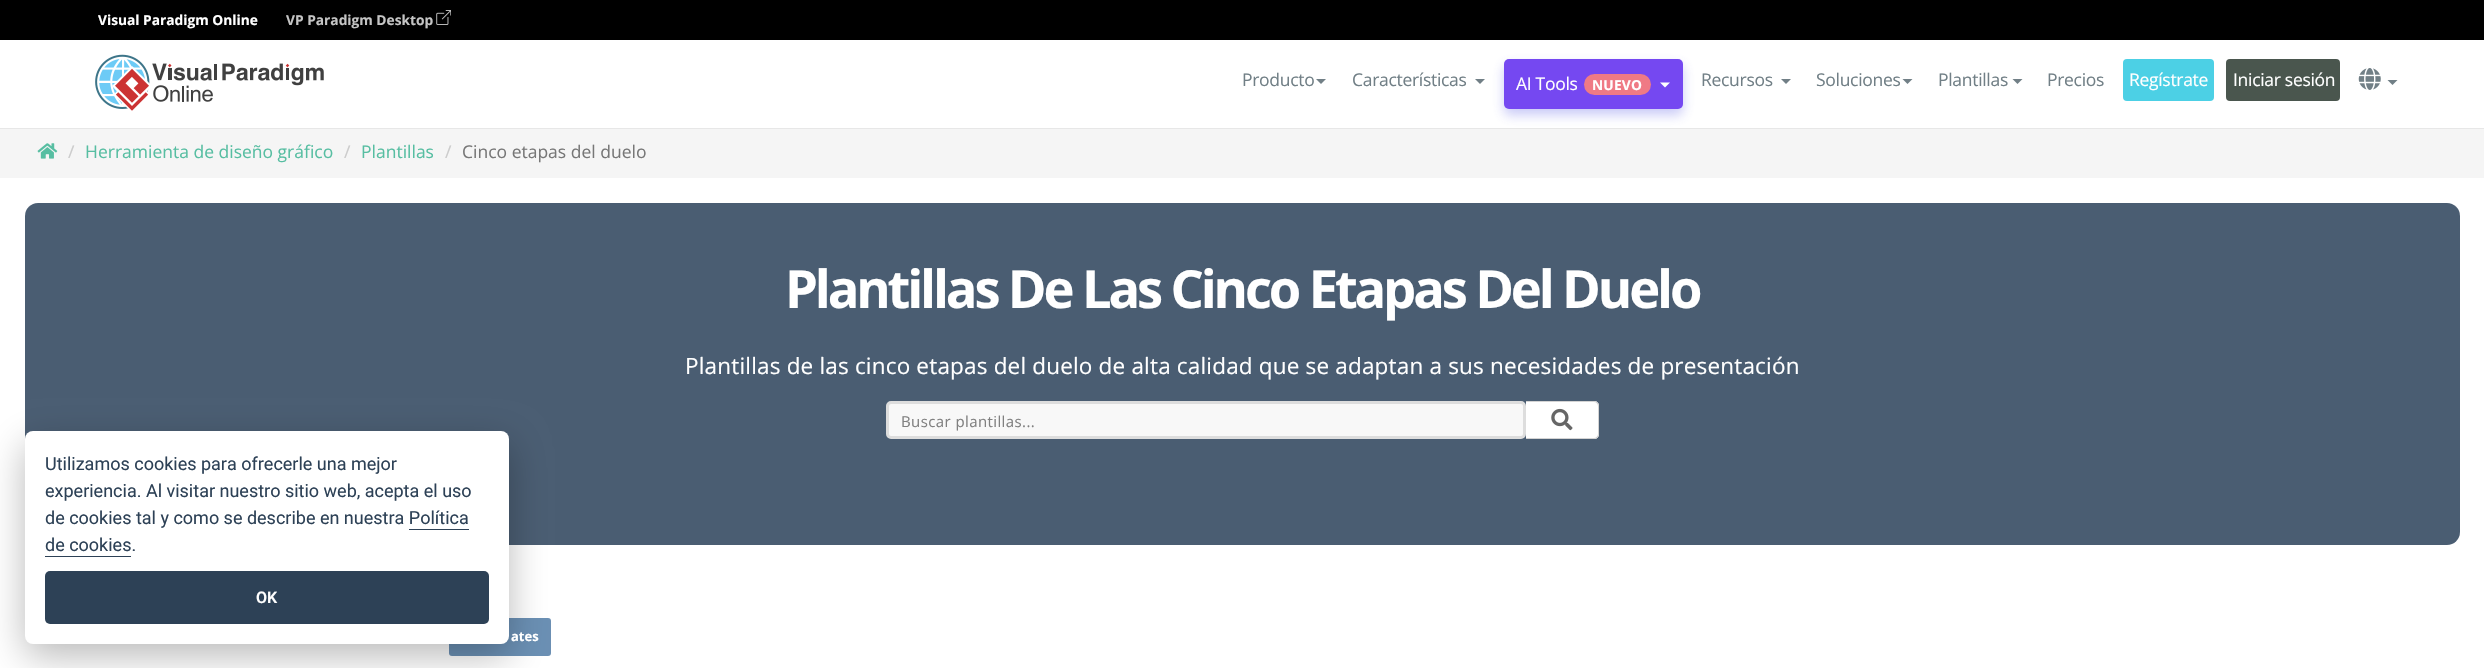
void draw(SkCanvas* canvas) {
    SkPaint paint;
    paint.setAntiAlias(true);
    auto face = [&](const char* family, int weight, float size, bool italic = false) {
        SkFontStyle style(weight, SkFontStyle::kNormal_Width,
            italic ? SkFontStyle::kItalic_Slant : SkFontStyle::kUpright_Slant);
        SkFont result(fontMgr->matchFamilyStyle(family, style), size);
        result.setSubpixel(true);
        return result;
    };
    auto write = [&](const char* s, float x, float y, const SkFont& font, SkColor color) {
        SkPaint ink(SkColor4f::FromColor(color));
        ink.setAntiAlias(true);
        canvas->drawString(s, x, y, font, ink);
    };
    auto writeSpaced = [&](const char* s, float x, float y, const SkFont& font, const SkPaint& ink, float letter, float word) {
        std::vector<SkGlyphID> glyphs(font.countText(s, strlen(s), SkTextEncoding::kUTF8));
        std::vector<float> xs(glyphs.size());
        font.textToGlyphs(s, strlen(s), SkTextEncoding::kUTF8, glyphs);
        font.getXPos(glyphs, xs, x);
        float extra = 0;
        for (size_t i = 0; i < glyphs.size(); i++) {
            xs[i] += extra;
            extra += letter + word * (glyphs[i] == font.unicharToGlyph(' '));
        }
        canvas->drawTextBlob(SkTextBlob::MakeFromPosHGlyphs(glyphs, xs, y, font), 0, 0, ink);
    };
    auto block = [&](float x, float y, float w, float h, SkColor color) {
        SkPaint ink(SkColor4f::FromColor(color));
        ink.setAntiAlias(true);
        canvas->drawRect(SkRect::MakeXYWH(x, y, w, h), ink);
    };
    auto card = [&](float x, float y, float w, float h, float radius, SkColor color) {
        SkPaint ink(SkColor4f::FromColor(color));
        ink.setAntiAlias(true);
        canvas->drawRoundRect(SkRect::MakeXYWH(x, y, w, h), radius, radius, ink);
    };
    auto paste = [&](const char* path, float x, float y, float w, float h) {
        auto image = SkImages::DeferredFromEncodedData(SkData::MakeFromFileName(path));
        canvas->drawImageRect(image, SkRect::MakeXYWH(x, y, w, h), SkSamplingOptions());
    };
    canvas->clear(SK_ColorWHITE);
    block(0, 128, 2484, 1, SkColorSetRGB(231, 231, 231));
    block(0, 0, 2484, 40, SK_ColorBLACK);
    auto kFont1 = face("Open Sans", 700, 13.75f);
    write("Visual Paradigm Online", 98, 25, kFont1, SK_ColorWHITE);
    write("VP Paradigm Desktop", 286, 25, kFont1, SkColorSetRGB(196, 196, 196));
    paste("pic1.png", 436, 10, 15, 15);
    paste("pic2.png", 95, 54, 229, 57);
    auto kFont2 = face("Open Sans", 400, 17.5f);
    paint.setColor(SkColorSetRGB(113, 127, 134));
    writeSpaced("Producto", 1242, 86, kFont2, paint, -0.3f, 0);
    canvas->drawPath(SkPathBuilder().moveTo(1316, 79).lineTo(1326, 79).lineTo(1321, 84).close().detach(), paint);
    writeSpaced("Características", 1352, 86, kFont2, paint, -0.3f, 0);
    canvas->drawPath(SkPathBuilder().moveTo(1475, 79).lineTo(1485, 79).lineTo(1480, 84).close().detach(), paint);
    block(0, 129, 2484, 49, SkColorSetRGB(245, 245, 245));
    paint.setColor(SkColorSetARGB(77, 76, 78, 229));
    paint.setMaskFilter(SkMaskFilter::MakeBlur(kNormal_SkBlurStyle, 6));
    canvas->drawRoundRect(SkRect::MakeXYWH(1504, 65, 179, 50), 5, 5, paint);
    paint.setMaskFilter(nullptr);
    card(1504, 59, 179, 50, 5, SkColorSetRGB(117, 72, 241));
    paint.setColor(SK_ColorWHITE);
    writeSpaced("AI Tools", 1516, 90, kFont2, paint, -0.3f, 0);
    card(1584, 74, 67, 21, 10.5f, SkColorSetRGB(239, 122, 133));
    writeSpaced("NUEVO", 1592, 90, kFont1, paint, 0.18f, 0);
    canvas->drawPath(SkPathBuilder().moveTo(1660, 82.5f).lineTo(1670, 82.5f).lineTo(1665, 87.5f).close().detach(), paint);
    paint.setColor(SkColorSetRGB(113, 127, 134));
    writeSpaced("Recursos", 1701, 86, kFont2, paint, -0.3f, 0);
    canvas->drawPath(SkPathBuilder().moveTo(1781, 79).lineTo(1791, 79).lineTo(1786, 84).close().detach(), paint);
    writeSpaced("Soluciones", 1816, 86, kFont2, paint, -0.3f, 0);
    canvas->drawPath(SkPathBuilder().moveTo(1902.5f, 79).lineTo(1912.5f, 79).lineTo(1907.5f, 84).close().detach(), paint);
    writeSpaced("Plantillas", 1938, 86, kFont2, paint, -0.3f, 0);
    canvas->drawPath(SkPathBuilder().moveTo(2012.5f, 79).lineTo(2022.5f, 79).lineTo(2017.5f, 84).close().detach(), paint);
    writeSpaced("Precios", 2047, 86, kFont2, paint, -0.3f, 0);
    card(2123, 59, 91, 42, 4, SkColorSetRGB(76, 208, 229));
    paint.setColor(SK_ColorWHITE);
    writeSpaced("Regístrate", 2129, 86, kFont2, paint, -0.3f, 0);
    card(2226, 59, 114, 42, 4, SkColorSetRGB(74, 86, 78));
    writeSpaced("Iniciar sesión", 2233, 86, kFont2, paint, -0.3f, 0);
    paste("pic3.png", 2358, 68, 23, 22);
    paint.setColor(SkColorSetRGB(113, 127, 134));
    canvas->drawPath(SkPathBuilder().moveTo(2387.5f, 80).lineTo(2397.5f, 80).lineTo(2392.5f, 85).close().detach(), paint);
    paste("pic4.png", 37, 143, 21, 16);
    write("/", 68, 158, kFont2, SkColorSetRGB(204, 204, 204));
    write("Herramienta de diseño gráfico", 85, 158, kFont2, SkColorSetRGB(87, 190, 162));
    write("/", 344, 158, kFont2, SkColorSetRGB(204, 204, 204));
    write("Plantillas", 361, 158, kFont2, SkColorSetRGB(87, 190, 162));
    write("/", 445, 158, kFont2, SkColorSetRGB(204, 204, 204));
    write("Cinco etapas del duelo", 462, 158, kFont2, SkColorSetRGB(119, 119, 119));
    card(25, 203, 2435, 342, 13, SkColorSetRGB(74, 93, 114));
    auto kFont3 = face("Open Sans", 700, 52.5f);
    paint.setColor(SK_ColorWHITE);
    writeSpaced("Plantillas De Las Cinco Etapas Del Duelo", 785, 308, kFont3, paint, -3.15f, 0);
    auto kFont4 = face("Open Sans", 400, 22.5f);
    writeSpaced("Plantillas de las cinco etapas del duelo de alta calidad que se adaptan a sus necesidades de presentación", 685, 374, kFont4, paint, 0.18f, 0);
    paint.setColor(SkColorSetRGB(248, 248, 248));
    canvas->drawRoundRect(SkRect::MakeXYWH(887.5f, 402.5f, 637, 35), 3.5f, 3.5f, paint);
    paint.setStyle(SkPaint::kStroke_Style);
    paint.setStrokeWidth(3);
    paint.setColor(SkColorSetRGB(221, 221, 221));
    canvas->drawRoundRect(SkRect::MakeXYWH(887.5f, 402.5f, 637, 35), 3.5f, 3.5f, paint);
    auto kFont5 = face("Open Sans", 400, 15);
    paint.setStyle(SkPaint::kFill_Style);
    paint.setColor(SkColorSetRGB(128, 128, 128));
    writeSpaced("Buscar plantillas...", 901, 427, kFont5, paint, 0.4f, 0);
    paint.setColor(SK_ColorWHITE);
    canvas->drawPath(SkPathBuilder().moveTo(1526, 401).lineTo(1594, 401).cubicTo(1597, 401, 1599, 403, 1599, 406).lineTo(1599, 434).cubicTo(1599, 437, 1597, 439, 1594, 439).lineTo(1526, 439).close().detach(), paint);
    paint.setColor(SkColorSetRGB(211, 211, 211));
    canvas->drawPath(SkPathBuilder(SkPathFillType::kEvenOdd).moveTo(1526, 401).lineTo(1594, 401).cubicTo(1597, 401, 1599, 403, 1599, 406).lineTo(1599, 434).cubicTo(1599, 437, 1597, 439, 1594, 439).lineTo(1526, 439).close().moveTo(1526, 402).lineTo(1594, 402).cubicTo(1596, 402, 1598, 404, 1598, 406).lineTo(1598, 434).cubicTo(1598, 436, 1596, 438, 1594, 438).lineTo(1526, 438).close().detach(), paint);
    paste("pic5.png", 1551, 408, 22, 23);
    card(449, 618, 102, 38, 3, SkColorSetRGB(106, 143, 179));
    paint.setColor(SkColorSetARGB(71, 2, 2, 3));
    paint.setMaskFilter(SkMaskFilter::MakeBlur(kNormal_SkBlurStyle, 19));
    canvas->drawRoundRect(SkRect::MakeXYWH(25, 444, 484, 212), 8, 8, paint);
    paint.setMaskFilter(nullptr);
    card(25, 431, 484, 213, 8, SK_ColorWHITE);
    auto kFont6 = face("Roboto", 400, 18);
    write("Utilizamos cookies para ofrecerle una mejor", 45, 470, kFont6, SkColorSetRGB(45, 65, 86));
    write("experiencia. Al visitar nuestro sitio web, acepta el uso", 45, 497, kFont6, SkColorSetRGB(45, 65, 86));
    write("de cookies tal y como se describe en nuestra Política", 45, 524, kFont6, SkColorSetRGB(45, 65, 86));
    write("de cookies.", 45, 551, kFont6, SkColorSetRGB(45, 65, 86));
    block(409, 529, 60, 1, SkColorSetRGB(45, 65, 86));
    block(45, 556, 86, 1, SkColorSetRGB(45, 65, 86));
    card(45, 571, 444, 53, 5, SkColorSetRGB(45, 65, 86));
    auto kFont7 = face("Roboto", 600, 16);
    write("OK", 256, 603, kFont7, SK_ColorWHITE);
    auto kFont8 = face("Open Sans", 700, 13);
    write("ates", 511, 641, kFont8, SK_ColorWHITE);
}
